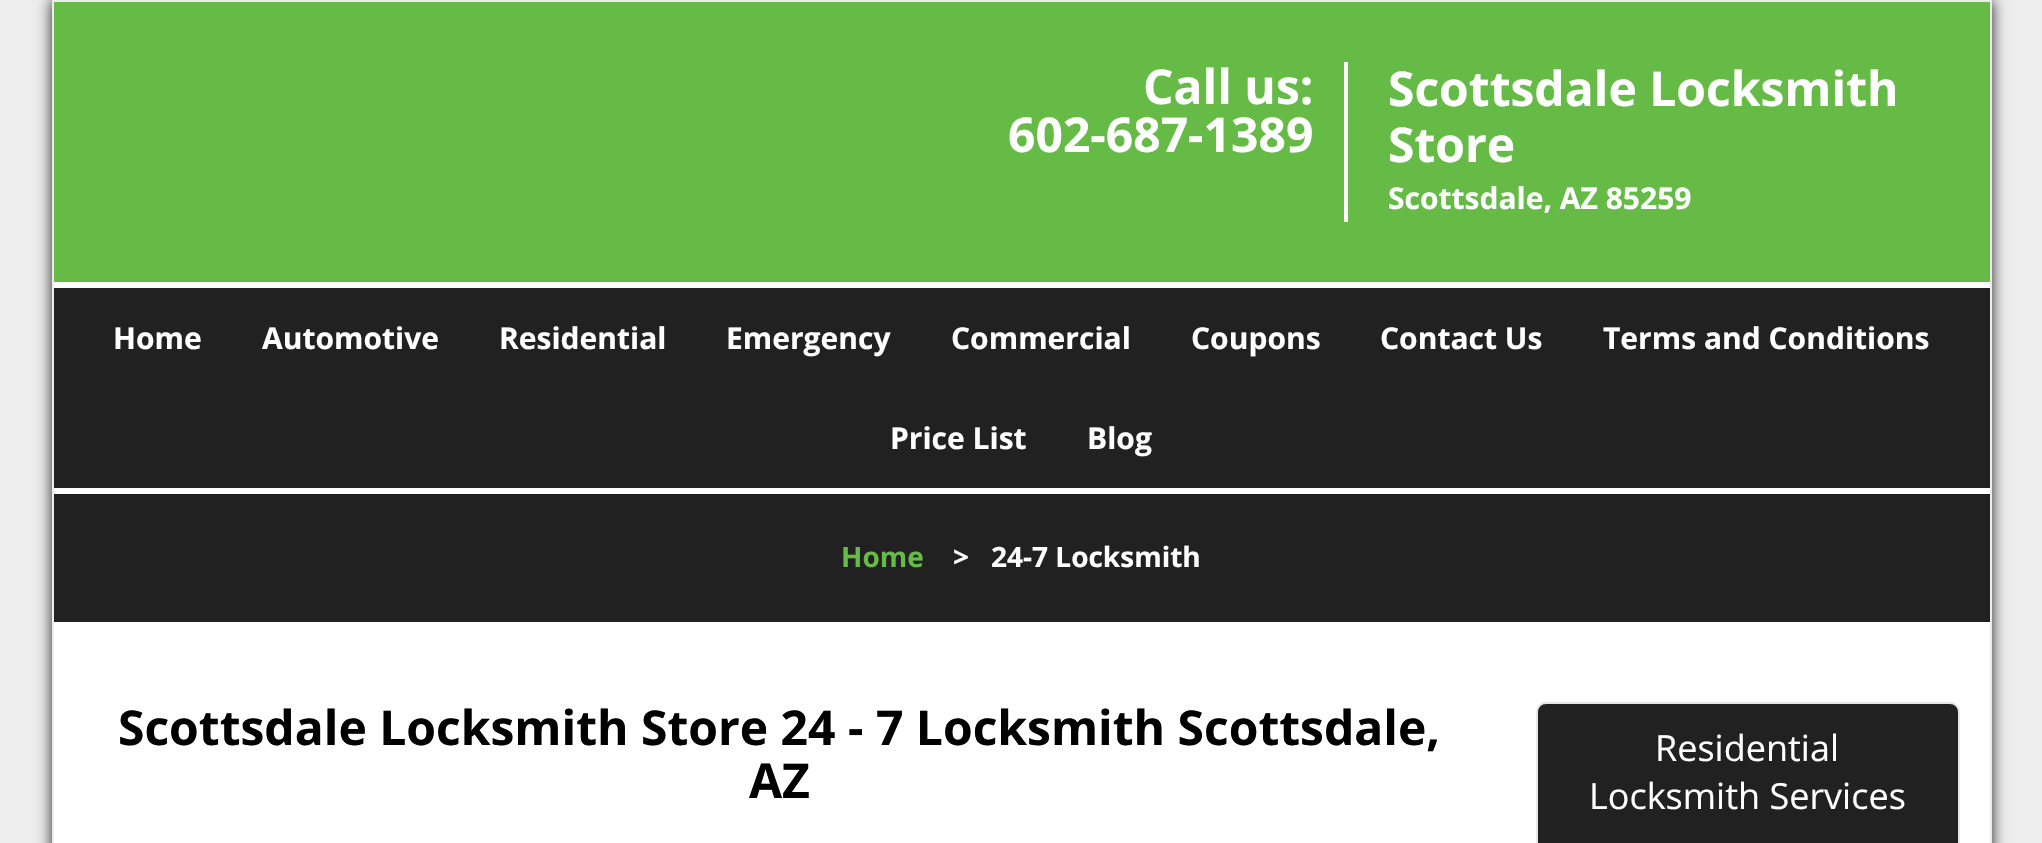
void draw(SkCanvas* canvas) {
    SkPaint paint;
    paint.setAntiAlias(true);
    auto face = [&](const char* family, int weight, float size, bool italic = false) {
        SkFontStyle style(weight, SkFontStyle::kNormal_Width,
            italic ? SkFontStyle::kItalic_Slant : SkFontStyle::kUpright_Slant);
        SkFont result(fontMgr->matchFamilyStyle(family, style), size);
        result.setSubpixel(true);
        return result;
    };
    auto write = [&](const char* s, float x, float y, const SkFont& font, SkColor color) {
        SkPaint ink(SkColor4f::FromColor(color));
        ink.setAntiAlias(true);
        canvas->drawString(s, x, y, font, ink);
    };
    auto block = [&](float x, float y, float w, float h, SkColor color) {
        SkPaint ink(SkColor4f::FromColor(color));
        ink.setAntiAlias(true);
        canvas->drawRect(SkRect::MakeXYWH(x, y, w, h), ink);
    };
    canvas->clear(SkColorSetRGB(237, 237, 237));
    canvas->save();
    canvas->clipPath(SkPathBuilder(SkPathFillType::kEvenOdd).moveTo(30, 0).lineTo(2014, 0).lineTo(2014, 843).lineTo(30, 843).close().moveTo(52, 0).lineTo(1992, 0).lineTo(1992, 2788).lineTo(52, 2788).close().detach(), true);
    paint.setColor(SkColorSetRGB(33, 33, 33));
    paint.setMaskFilter(SkMaskFilter::MakeBlur(kNormal_SkBlurStyle, 7));
    canvas->drawRect(SkRect::MakeXYWH(52, 0, 1940, 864), paint);
    paint.setMaskFilter(nullptr);
    canvas->restore();
    block(54, 2, 1936, 280, SkColorSetRGB(101, 187, 70));
    auto kFont1 = face("Open Sans", 700, 48);
    write("Call us:", 1143, 104, kFont1, SK_ColorWHITE);
    write("602-687-1389", 1008, 152, kFont1, SK_ColorWHITE);
    block(1344, 62, 4, 160, SK_ColorWHITE);
    write("Scottsdale Locksmith", 1388, 106, kFont1, SK_ColorWHITE);
    write("Store", 1388, 162, kFont1, SK_ColorWHITE);
    auto kFont2 = face("Open Sans", 700, 30);
    write("Scottsdale, AZ 85259", 1388, 209, kFont2, SK_ColorWHITE);
    block(54, 288, 1936, 200, SkColorSetRGB(33, 33, 33));
    block(54, 282, 1936, 6, SK_ColorWHITE);
    block(54, 488, 1936, 6, SK_ColorWHITE);
    write("Home", 113, 349, kFont2, SK_ColorWHITE);
    write("Automotive", 262, 349, kFont2, SK_ColorWHITE);
    write("Residential", 499, 349, kFont2, SK_ColorWHITE);
    write("Emergency", 726, 349, kFont2, SK_ColorWHITE);
    write("Commercial", 951, 349, kFont2, SK_ColorWHITE);
    write("Coupons", 1191, 349, kFont2, SK_ColorWHITE);
    write("Contact Us", 1380, 349, kFont2, SK_ColorWHITE);
    write("Terms and Conditions", 1603, 349, kFont2, SK_ColorWHITE);
    write("Price List", 890, 449, kFont2, SK_ColorWHITE);
    write("Blog", 1087, 449, kFont2, SK_ColorWHITE);
    block(54, 494, 1936, 128, SkColorSetRGB(33, 33, 33));
    auto kFont3 = face("Open Sans", 700, 28);
    write("Home", 841, 567, kFont3, SkColorSetRGB(101, 187, 70));
    write(">", 953, 567, kFont3, SK_ColorWHITE);
    write("24-7 Locksmith", 991, 567, kFont3, SK_ColorWHITE);
    block(54, 622, 1936, 221, SK_ColorWHITE);
    write("Scottsdale Locksmith Store 24 - 7 Locksmith Scottsdale,", 118, 745, kFont1, SK_ColorBLACK);
    write("AZ", 749, 798, kFont1, SK_ColorBLACK);
    canvas->drawRoundRect(SkRect::MakeXYWH(1537, 703, 422, 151), 9, 9, paint);
    paint.setStyle(SkPaint::kStroke_Style);
    paint.setStrokeWidth(2);
    paint.setColor(SkColorSetRGB(230, 230, 230));
    canvas->drawRoundRect(SkRect::MakeXYWH(1537, 703, 422, 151), 9, 9, paint);
    auto kFont4 = face("Open Sans", 400, 36);
    write("Residential", 1655, 761, kFont4, SK_ColorWHITE);
    write("Locksmith Services", 1589, 809, kFont4, SK_ColorWHITE);
}
